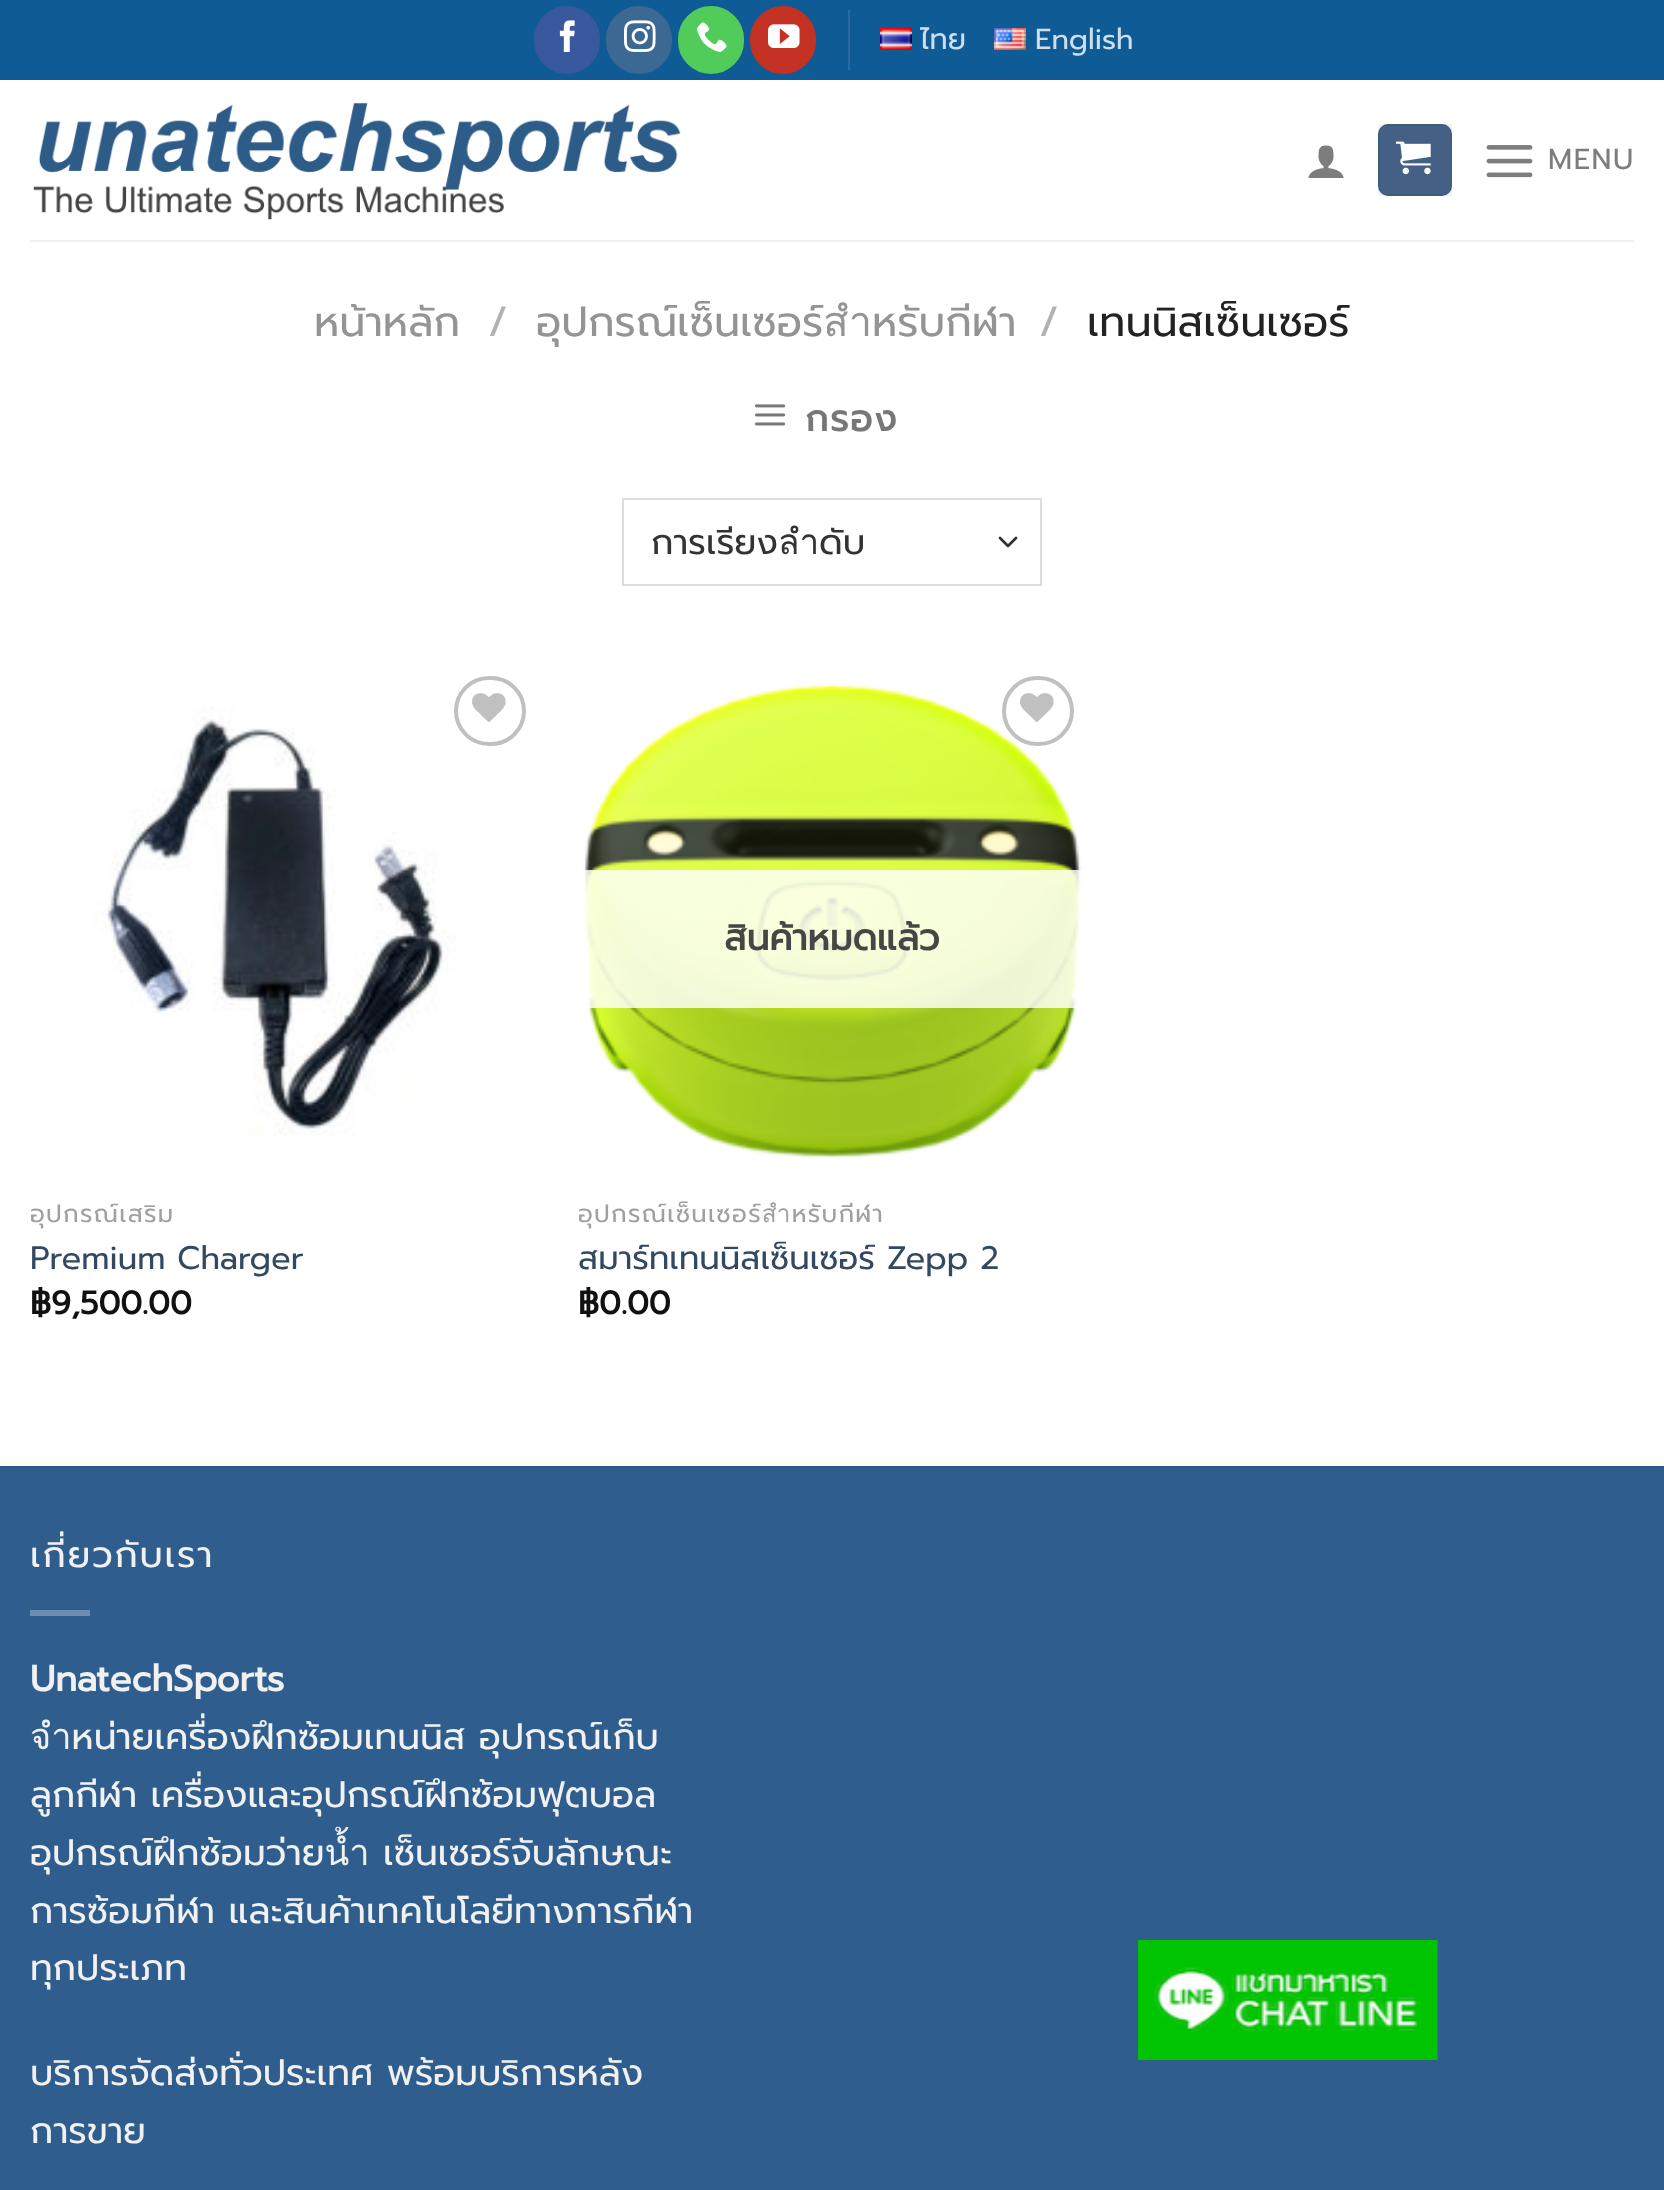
<svg xmlns="http://www.w3.org/2000/svg" width="1664" height="2190">
	<defs>
		<clipPath id="clip1"><rect x="30" y="1200" width="508" height="30" /></clipPath>
		<clipPath id="clip2"><rect x="578" y="1200" width="508" height="30" /></clipPath>
	</defs>
	<rect width="100%" height="100%" fill="#FFFFFF" />
	<rect x="0" y="0" width="1664" height="80" fill="#0F5B95" />
	<rect x="535" y="7" width="64" height="66" rx="32" fill="#3A589D" stroke="#3A589D" stroke-width="2" />
	<image x="559" y="20" width="16" height="32" href="assets/img1.png" />
	<rect x="607" y="7" width="64" height="66" rx="32" fill="#3B6994" stroke="#3B6994" stroke-width="2" />
	<image x="624" y="20" width="32" height="32" href="assets/img2.png" />
	<rect x="679" y="7" width="64" height="66" rx="32" fill="#51CB5A" stroke="#51CB5A" stroke-width="2" />
	<image x="697" y="22" width="30" height="30" href="assets/img3.png" />
	<rect x="751" y="7" width="64" height="66" rx="32" fill="#C33223" stroke="#C33223" stroke-width="2" />
	<image x="768" y="24" width="32" height="24" href="assets/img4.png" />
	<rect x="848" y="10" width="2" height="60" fill="#276BA0" />
	<image x="880" y="28" width="32" height="22" href="assets/img5.png" />
	<text x="920" y="49" font-family="Prompt" font-size="29" fill="#CFDEEA">ไทย</text>
	<image x="994" y="28" width="32" height="22" href="assets/img6.png" />
	<text x="1035" y="49" font-family="Prompt" font-size="29" fill="#CFDEEA">English</text>
	<image x="33" y="102" width="648" height="118" href="assets/img7.png" />
	<image x="1308" y="145" width="36" height="33" href="assets/img8.png" />
	<rect x="1378" y="124" width="74" height="72" rx="10" fill="#446084" />
	<rect x="1379" y="125" width="72" height="70" fill="none" stroke="#000000" stroke-opacity="0.05" stroke-width="2" />
	<image x="1396" y="141" width="35" height="34" href="assets/img9.png" />
	<image x="1486" y="145" width="47" height="33" href="assets/img10.png" />
	<text x="1548" y="169" font-family="Prompt" font-size="29" letter-spacing="1.5" fill="#7D7D7D">MENU</text>
	<rect x="30" y="240" width="1604" height="2" fill="#F1F1F1" />
	<text x="314" y="336" font-family="Prompt" font-size="41.5" fill="#949494">หน้าหลัก</text>
	<text x="488" y="336" font-family="Prompt" font-size="41.5" fill="#B2B2B2">/</text>
	<text x="536" y="336" font-family="Prompt" font-size="41.5" fill="#949494">อุปกรณ์เซ็นเซอร์สำหรับกีฬา</text>
	<text x="1039" y="336" font-family="Prompt" font-size="41.5" fill="#B2B2B2">/</text>
	<text x="1087" y="336" font-family="Prompt" font-size="41.5" fill="#222222">เทนนิสเซ็นเซอร์</text>
	<image x="755" y="404" width="31" height="22" href="assets/img11.png" />
	<text x="805" y="431" font-family="Prompt" font-size="36.2" font-weight="700" letter-spacing="1.75" fill="#777777">กรอง</text>
	<path d="M1000 538L1008 546L1016 538" fill="none" stroke="#333333" stroke-width="2.7" stroke-linecap="round" stroke-linejoin="round" />
	<rect x="623" y="499" width="418" height="86" fill="none" stroke="#DDDDDD" stroke-width="2" />
	<text x="651" y="554" font-family="Prompt" font-size="35" fill="#333333">การเรียงลำดับ</text>
	<image x="92" y="707" width="365" height="429" href="assets/img12.png" />
	<rect x="456" y="678" width="68" height="66" rx="33" fill="none" stroke="#C0C0C0" stroke-width="4" />
	<image x="472" y="693" width="34" height="29" href="assets/img13.png" />
	<g clip-path="url(#clip1)">
		<text x="30" y="1222" font-family="Prompt" font-size="24.4" letter-spacing="1.25" fill="#A0A0A0">อุปกรณ์เสริม</text>
	</g>
	<text x="30" y="1269" font-family="Prompt" font-size="32.5" fill="#334862">Premium Charger</text>
	<text x="30" y="1314" font-family="Prompt" font-size="32.5" font-weight="700" fill="#111111">฿9,500.00</text>
	<image x="582" y="683" width="500" height="476" href="assets/img14.png" />
	<rect x="1004" y="678" width="68" height="66" rx="33" fill="none" stroke="#C0C0C0" stroke-width="4" />
	<image x="1020" y="693" width="34" height="29" href="assets/img13.png" />
	<rect x="582" y="870" width="500" height="138" fill="#FFFFFF" fill-opacity="0.81" />
	<text x="724" y="950" font-family="Prompt" font-size="36.2" font-weight="700" fill="#464744">สินค้าหมดแล้ว</text>
	<g clip-path="url(#clip2)">
		<text x="578" y="1222" font-family="Prompt" font-size="24.4" letter-spacing="1.25" fill="#A0A0A0">อุปกรณ์เซ็นเซอร์สำหรับกีฬา</text>
	</g>
	<text x="578" y="1269" font-family="Prompt" font-size="32.5" fill="#334862">สมาร์ทเทนนิสเซ็นเซอร์ Zepp 2</text>
	<text x="578" y="1314" font-family="Prompt" font-size="32.5" font-weight="700" fill="#111111">฿0.00</text>
	<rect x="0" y="1468" width="1664" height="722" fill="#2F5E8E" />
	<rect x="0" y="1466" width="1664" height="2" fill="#2D5987" />
	<text x="30" y="1567" font-family="Prompt" font-size="36.2" letter-spacing="1.75" fill="#F1F1F1">เกี่ยวกับเรา</text>
	<rect x="30" y="1610" width="60" height="6" fill="#6D8EB0" />
	<text x="30" y="1691" font-family="Prompt" font-size="36.2" font-weight="700" fill="#F1F1F1">UnatechSports</text>
	<g font-family="Prompt" font-size="36.2" fill="#F1F1F1">
		<text x="30" y="1749">จำหน่ายเครื่องฝึกซ้อมเทนนิส อุปกรณ์เก็บ</text>
		<text x="30" y="1807">ลูกกีฬา เครื่องและอุปกรณ์ฝึกซ้อมฟุตบอล</text>
		<text x="30" y="1865">อุปกรณ์ฝึกซ้อมว่ายน้ำ เซ็นเซอร์จับลักษณะ</text>
		<text x="30" y="1923">การซ้อมกีฬา และสินค้าเทคโนโลยีทางการกีฬา</text>
		<text x="30" y="1980">ทุกประเภท</text>
		<text x="30" y="2085">บริการจัดส่งทั่วประเทศ พร้อมบริการหลัง</text>
		<text x="30" y="2143">การขาย</text>
	</g>
	<image x="1138" y="1940" width="300" height="120" href="assets/img15.png" />
</svg>
